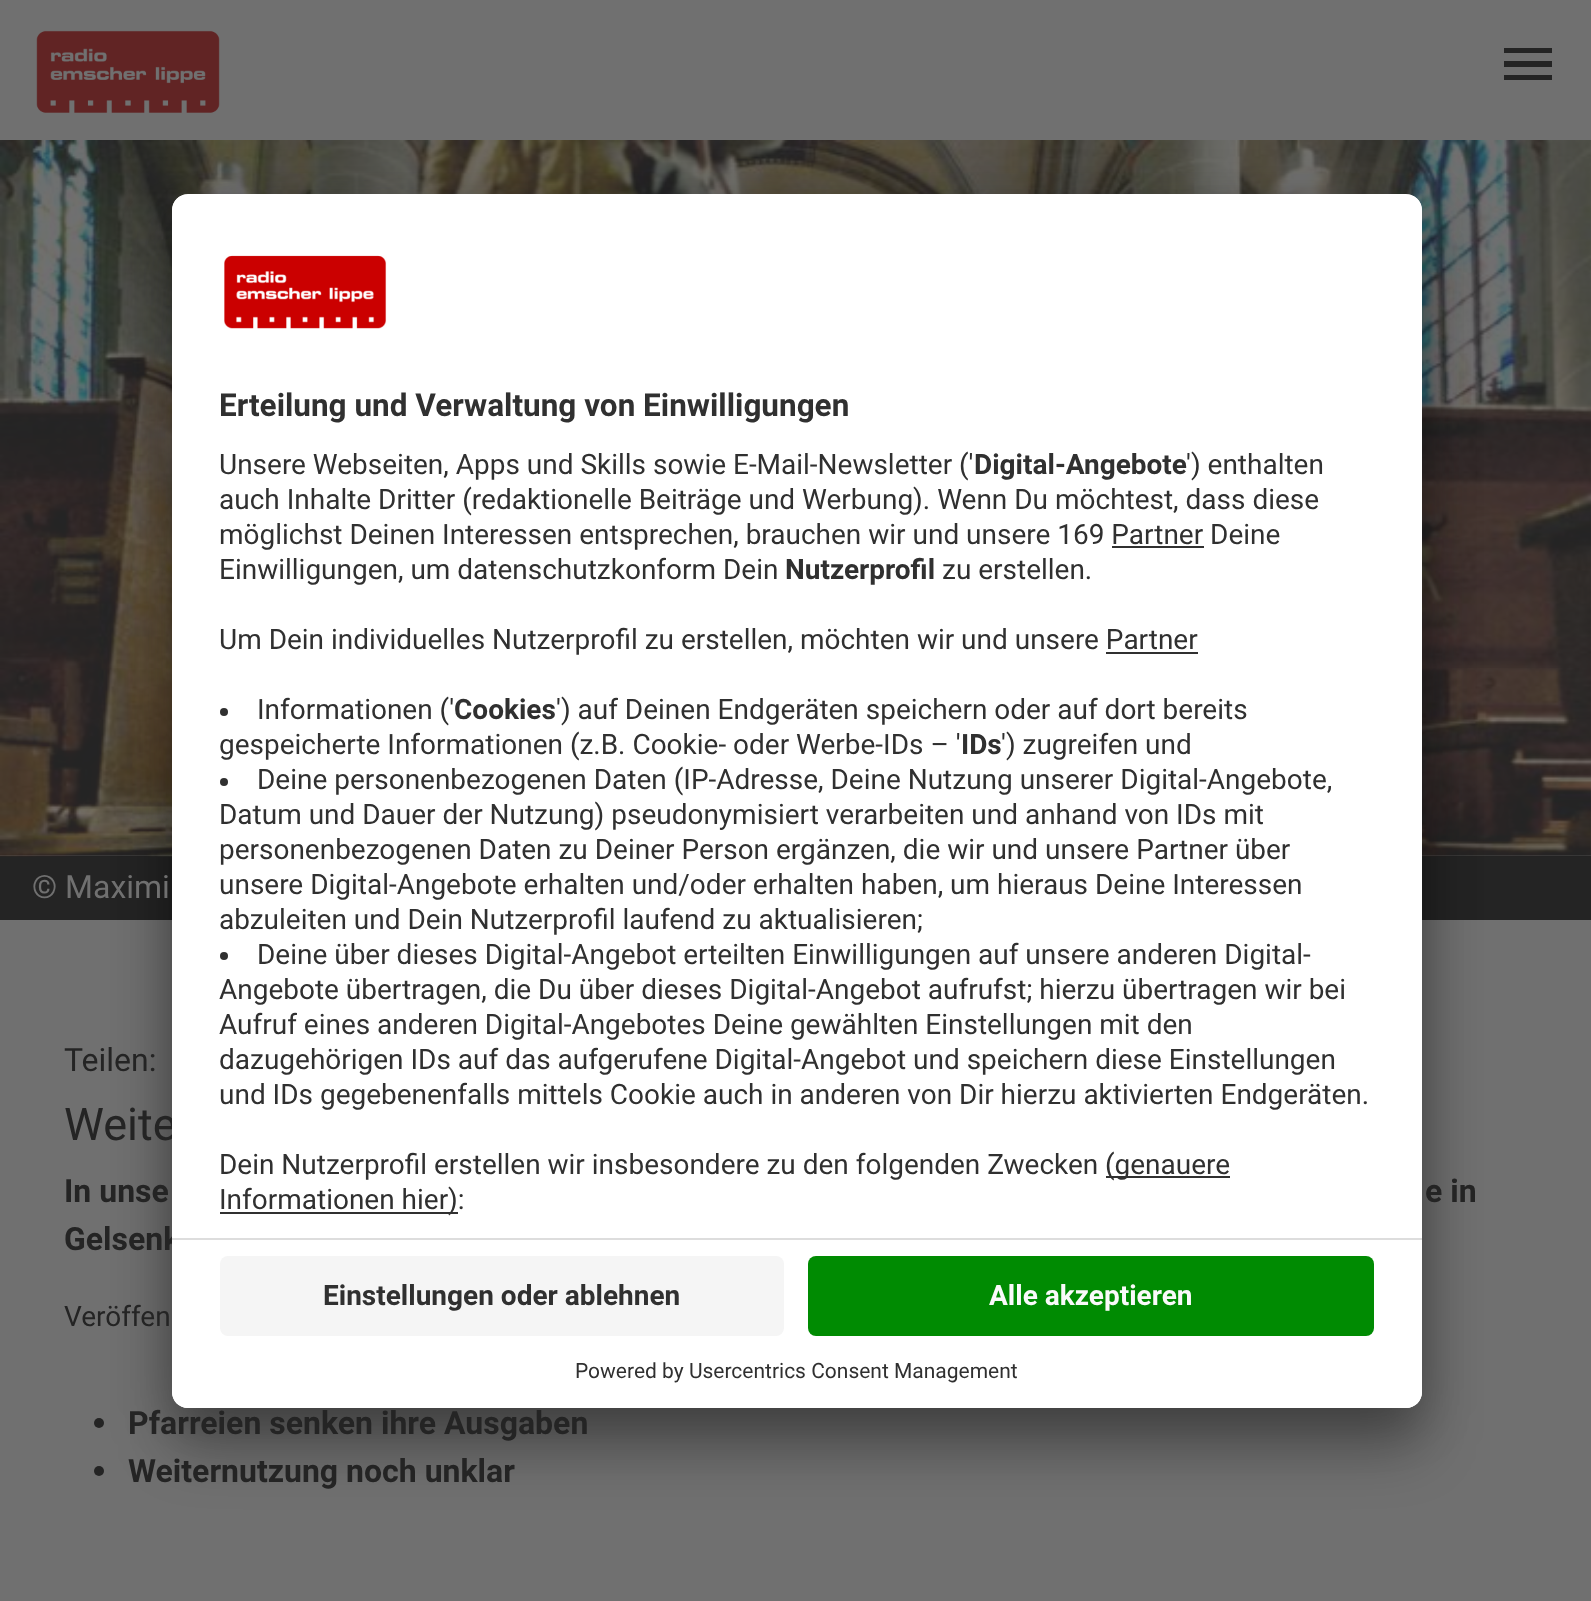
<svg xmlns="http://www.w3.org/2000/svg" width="1591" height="1601">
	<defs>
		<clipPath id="clip1"><rect x="172" y="194" width="1250" height="1214" rx="16" /></clipPath>
		<clipPath id="clip2"><path d="M188 194H1406C1415 194 1422 201 1422 210V1238H172V210C172 201 179 194 188 194Z" /></clipPath>
	</defs>
	<rect width="100%" height="100%" fill="#707070" />
	<rect x="0" y="856" width="1591" height="64" fill="#242424" />
	<image x="0" y="140" width="1591" height="717" href="assets/img3.png" />
	<circle cx="99" cy="1423" r="5" fill="#242424" />
	<circle cx="99" cy="1471" r="5" fill="#242424" />
	<rect x="172" y="234" width="1250" height="1214" rx="16" fill="#000000" fill-opacity="0.3" filter="blur(28px)" />
	<rect x="172" y="204" width="1250" height="1214" rx="16" fill="#000000" fill-opacity="0.22" filter="blur(26px)" />
	<text x="64" y="1140" font-family="Roboto" font-size="45" fill="#242424">Weite</text>
	<text x="64" y="1250" font-family="Roboto" font-size="32" font-weight="700" fill="#242424">Gelsenk</text>
	<rect x="172" y="194" width="1250" height="1214" rx="16" fill="#FFFFFF" />
	<g clip-path="url(#clip1)">
		<g clip-path="url(#clip2)">
			<rect x="172" y="196" width="1250" height="1042" fill="#FFFFFF" />
		</g>
	</g>
	<image x="224" y="255" width="163" height="74" href="assets/img1.png" />
	<text x="219" y="416" font-family="Roboto" font-size="31.5" font-weight="700" fill="#303030">Erteilung und Verwaltung von Einwilligungen</text>
	<text x="219" y="474" font-family="Roboto" font-size="28" fill="#303030">Unsere Webseiten, Apps und Skills sowie E-Mail-Newsletter ('</text>
	<text x="974" y="474" font-family="Roboto" font-size="28" font-weight="700" fill="#303030">Digital-Angebote</text>
	<g font-family="Roboto" font-size="28" fill="#303030">
		<text x="1186" y="474">') enthalten</text>
		<text x="219" y="509">auch Inhalte Dritter (redaktionelle Beiträge und Werbung). Wenn Du möchtest, dass diese</text>
		<text x="219" y="544">möglichst Deinen Interessen entsprechen, brauchen wir und unsere 169 Partner Deine</text>
	</g>
	<rect x="1112" y="546" width="92" height="2" fill="#303030" />
	<text x="219" y="579" font-family="Roboto" font-size="28" fill="#303030">Einwilligungen, um datenschutzkonform Dein</text>
	<text x="785" y="579" font-family="Roboto" font-size="28" font-weight="700" fill="#303030">Nutzerprofil</text>
	<g font-family="Roboto" font-size="28" fill="#303030">
		<text x="942" y="579">zu erstellen.</text>
		<text x="219" y="649">Um Dein individuelles Nutzerprofil zu erstellen, möchten wir und unsere Partner</text>
	</g>
	<rect x="1106" y="652" width="92" height="2" fill="#303030" />
	<circle cx="224" cy="712" r="4" fill="#303030" />
	<text x="257" y="719" font-family="Roboto" font-size="28" fill="#303030">Informationen ('</text>
	<text x="454" y="719" font-family="Roboto" font-size="28" font-weight="700" fill="#303030">Cookies</text>
	<g font-family="Roboto" font-size="28" fill="#303030">
		<text x="556" y="719">') auf Deinen Endgeräten speichern oder auf dort bereits</text>
		<text x="219" y="754">gespeicherte Informationen (z.B. Cookie- oder Werbe-IDs – '</text>
	</g>
	<text x="961" y="754" font-family="Roboto" font-size="28" font-weight="700" fill="#303030">IDs</text>
	<text x="1001" y="754" font-family="Roboto" font-size="28" fill="#303030">') zugreifen und</text>
	<circle cx="224" cy="782" r="4" fill="#303030" />
	<g font-family="Roboto" font-size="28" fill="#303030">
		<text x="257" y="789">Deine personenbezogenen Daten (IP-Adresse, Deine Nutzung unserer Digital-Angebote,</text>
		<text x="219" y="824">Datum und Dauer der Nutzung) pseudonymisiert verarbeiten und anhand von IDs mit</text>
		<text x="219" y="859">personenbezogenen Daten zu Deiner Person ergänzen, die wir und unsere Partner über</text>
		<text x="219" y="894">unsere Digital-Angebote erhalten und/oder erhalten haben, um hieraus Deine Interessen</text>
		<text x="219" y="929">abzuleiten und Dein Nutzerprofil laufend zu aktualisieren;</text>
	</g>
	<circle cx="224" cy="956" r="4" fill="#303030" />
	<g font-family="Roboto" font-size="28" fill="#303030">
		<text x="257" y="964">Deine über dieses Digital-Angebot erteilten Einwilligungen auf unsere anderen Digital-</text>
		<text x="219" y="999">Angebote übertragen, die Du über dieses Digital-Angebot aufrufst; hierzu übertragen wir bei</text>
		<text x="219" y="1034">Aufruf eines anderen Digital-Angebotes Deine gewählten Einstellungen mit den</text>
		<text x="219" y="1069">dazugehörigen IDs auf das aufgerufene Digital-Angebot und speichern diese Einstellungen</text>
		<text x="219" y="1104">und IDs gegebenenfalls mittels Cookie auch in anderen von Dir hierzu aktivierten Endgeräten.</text>
		<text x="219" y="1174">Dein Nutzerprofil erstellen wir insbesondere zu den folgenden Zwecken</text>
	</g>
	<rect x="1106" y="1176" width="124" height="2" fill="#303030" />
	<text x="1105" y="1174" font-family="Roboto" font-size="28" fill="#303030">(genauere</text>
	<rect x="220" y="1212" width="238" height="2" fill="#303030" />
	<text x="219" y="1209" font-family="Roboto" font-size="28" fill="#303030">Informationen hier):</text>
	<path d="M172 1238H1422V1392C1422 1401 1415 1408 1406 1408H188C179 1408 172 1401 172 1392Z" fill="#FFFFFF" />
	<rect x="172" y="1238" width="1250" height="2" fill="#DDDDDD" />
	<rect x="220" y="1256" width="564" height="80" rx="8" fill="#F5F5F5" />
	<text x="323" y="1305" font-family="Roboto" font-size="28" font-weight="700" fill="#303030">Einstellungen oder ablehnen</text>
	<rect x="808" y="1256" width="566" height="80" rx="8" fill="#008B02" />
	<text x="989" y="1305" font-family="Roboto" font-size="28" font-weight="700" fill="#FAFAFA">Alle akzeptieren</text>
	<text x="575" y="1378" font-family="Roboto" font-size="21" fill="#303030">Powered by Usercentrics Consent Management</text>
	<image x="36" y="30" width="184" height="83" href="assets/img2.png" />
	<path d="M1504 80V75H1552V80ZM1504 67V61H1552V67ZM1504 53V48H1552V53Z" fill="#242424" />
	<text x="32" y="898" font-family="Roboto" font-size="32" fill="#707070">© Maximi</text>
	<text x="64" y="1071" font-family="Roboto" font-size="32" fill="#242424">Teilen:</text>
	<g font-family="Roboto" font-size="32" font-weight="700" fill="#242424">
		<text x="64" y="1202">In unse</text>
		<text x="1425" y="1202">e in</text>
	</g>
	<text x="64" y="1326" font-family="Roboto" font-size="28" fill="#242424">Veröffen</text>
	<g font-family="Roboto" font-size="32" font-weight="700" fill="#242424">
		<text x="128" y="1434">Pfarreien senken ihre Ausgaben</text>
		<text x="128" y="1482">Weiternutzung noch unklar</text>
	</g>
</svg>
